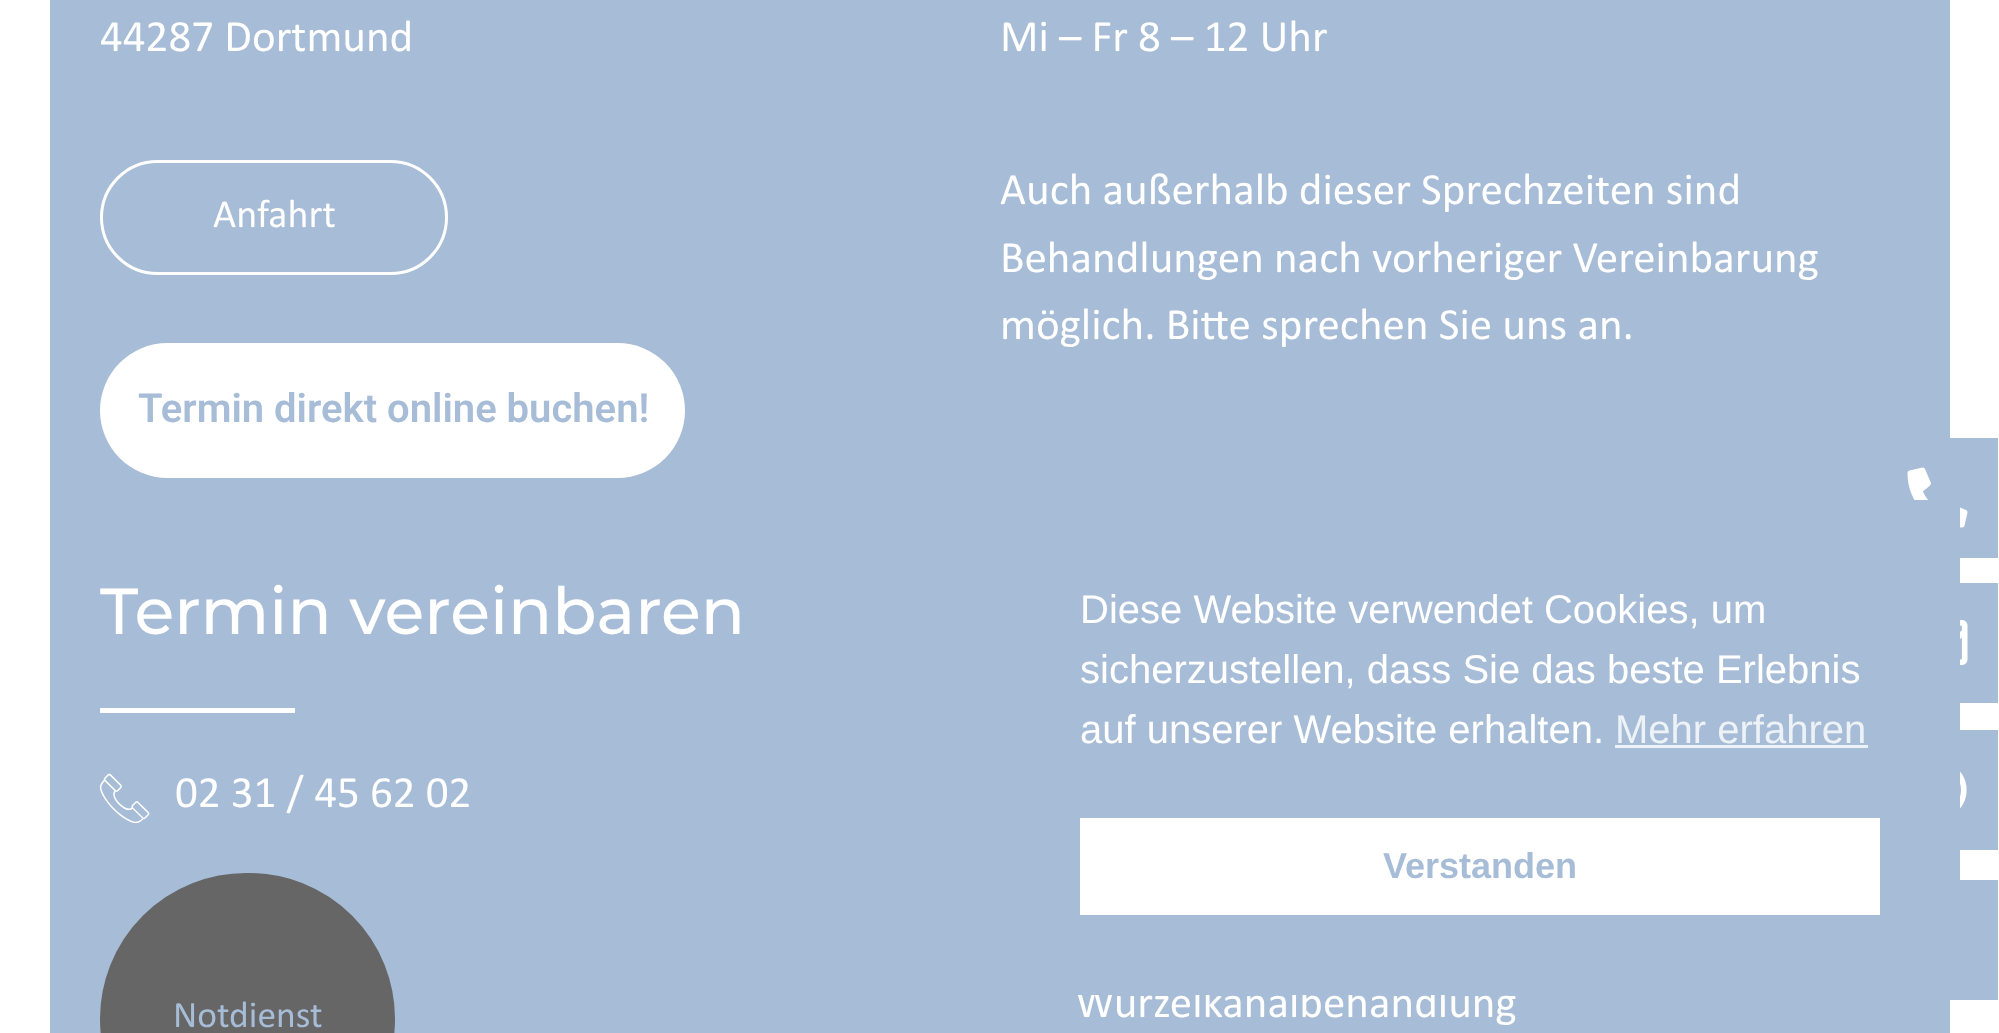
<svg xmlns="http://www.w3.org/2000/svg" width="1999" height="1033">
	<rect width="100%" height="100%" fill="#FFFFFF" />
	<rect x="50" y="0" width="1900" height="1033" fill="#A7BCD6" />
	<text x="100" y="51" font-family="Calibri" font-size="45" fill="#FFFFFF">44287 Dortmund</text>
	<rect x="101.5" y="161.5" width="345" height="112" rx="56" fill="none" stroke="#FFFFFF" stroke-width="3" />
	<text x="213" y="227" font-family="Calibri" font-size="40" fill="#FFFFFF">Anfahrt</text>
	<rect x="100" y="343" width="585" height="135" rx="67.5" fill="#FFFFFF" />
	<text x="138" y="422" font-family="Roboto" font-size="40" font-weight="600" fill="#A7BCD6">Termin direkt online buchen!</text>
	<g font-family="Calibri" font-size="45" fill="#FFFFFF">
		<text x="1000" y="51">Mi – Fr 8 – 12 Uhr</text>
		<text x="1000" y="204">Auch außerhalb dieser Sprechzeiten sind</text>
		<text x="1000" y="272">Behandlungen nach vorheriger Vereinbarung</text>
		<text x="1000" y="339">möglich. Bitte sprechen Sie uns an.</text>
	</g>
	<text x="100" y="634" font-family="Montserrat" font-size="65" font-weight="100" fill="#FFFFFF">Termin vereinbaren</text>
	<rect x="100" y="708" width="195" height="5" fill="#FFFFFF" />
	<image x="99" y="773" width="51" height="51" href="assets/img1.png" />
	<text x="175" y="807" font-family="Calibri" font-size="45" fill="#FFFFFF">02 31 / 45 62 02</text>
	<rect x="101.5" y="874.5" width="292" height="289" rx="144.5" fill="#666666" stroke="#666666" stroke-width="3" />
	<text x="173" y="1027" font-family="Calibri" font-size="37.5" fill="#A7BCD6">Notdienst</text>
	<text x="1075" y="1017" font-family="Calibri" font-size="45" fill="#FFFFFF">Wurzelkanalbehandlung</text>
	<rect x="1950" y="438" width="48" height="120" fill="#A7BCD6" />
	<image x="1907" y="467" width="61" height="61" href="assets/img2.png" />
	<rect x="1960" y="583" width="38" height="120" fill="#A7BCD6" />
	<image x="1960" y="620" width="8" height="45" href="assets/img3.png" />
	<rect x="1960" y="730" width="38" height="120" fill="#A7BCD6" />
	<image x="1960" y="771" width="7" height="38" href="assets/img4.png" />
	<rect x="1950" y="880" width="48" height="120" fill="#A7BCD6" />
	<rect x="1076" y="500" width="884" height="495" fill="#A7BCD6" />
	<g font-family="Liberation Sans" font-size="40" fill="#FFFFFF">
		<text x="1080" y="623">Diese Website verwendet Cookies, um</text>
		<text x="1080" y="683">sicherzustellen, dass Sie das beste Erlebnis</text>
		<text x="1080" y="743">auf unserer Website erhalten.</text>
	</g>
	<text x="1615" y="743" font-family="Liberation Sans" font-size="40" fill="#EDF2F7">Mehr erfahren</text>
	<rect x="1615" y="745" width="253" height="3" fill="#EDF2F7" />
	<rect x="1080" y="818" width="800" height="97" fill="#FFFFFF" />
	<text x="1383" y="878" font-family="Liberation Sans" font-size="36" font-weight="700" fill="#A7BCD6">Verstanden</text>
</svg>
